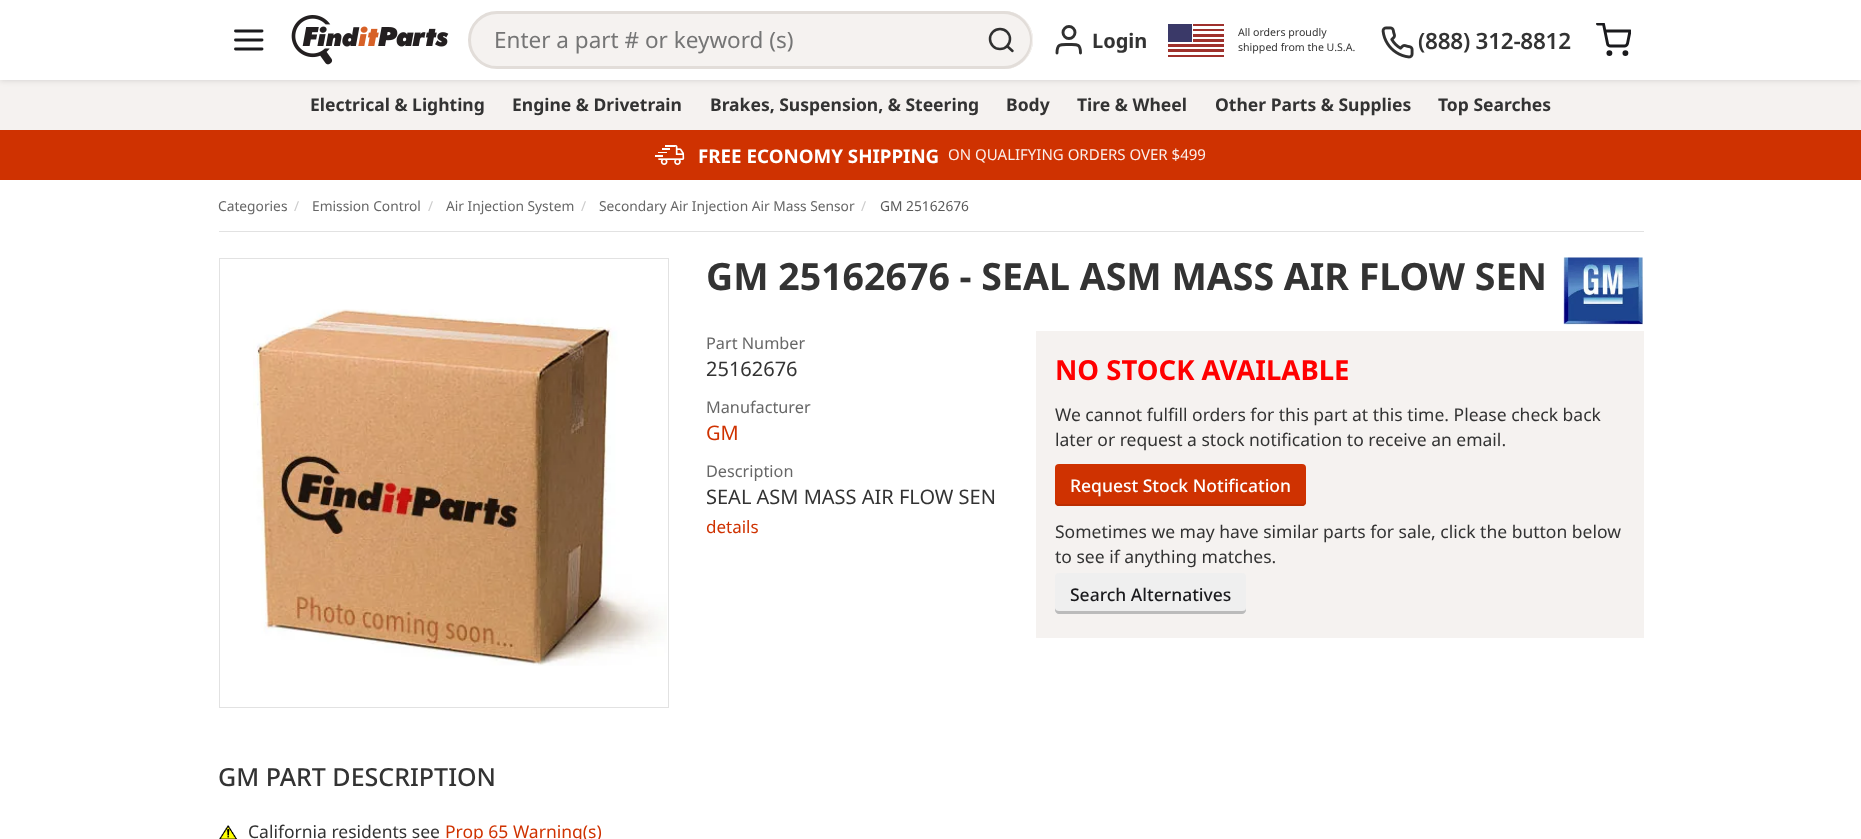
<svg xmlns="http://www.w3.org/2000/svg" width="1861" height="839">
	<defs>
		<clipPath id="clip1"><rect x="1596" y="23" width="35" height="35" /></clipPath>
	</defs>
	<rect width="100%" height="100%" fill="#FFFFFF" />
	<rect x="0" y="80" width="1861" height="50" fill="#F5F2F0" />
	<rect x="0" y="0" width="1861" height="80" fill="#000000" fill-opacity="0.25" filter="blur(0.5px)" />
	<rect x="0" y="0" width="1861" height="80" fill="#000000" fill-opacity="0.15" filter="blur(3px)" />
	<rect x="0" y="0" width="1861" height="80" fill="#FFFFFF" />
	<path d="M235.5 40H262M235.5 31H262M235.5 49H262" fill="none" stroke="#1A1A1D" stroke-width="2.9" stroke-linecap="round" stroke-linejoin="round" />
	<image x="291" y="15" width="158" height="50" href="assets/img1.png" />
	<rect x="469.5" y="12.5" width="562" height="55" rx="27.5" fill="#F5F2F0" stroke="#E2DDD9" stroke-width="3" />
	<text x="494" y="48" font-family="Noto Sans" font-size="22.5" fill="#757575">Enter a part # or keyword (s)</text>
	<path d="M974 11H1004C1020 11 1033 24 1033 40C1033 56 1020 69 1004 69H974Z" fill="#F5F2F0" />
	<circle cx="1000" cy="39" r="10" fill="none" stroke="#303030" stroke-width="2.5" />
	<path d="M1012.5 51L1007 46" fill="none" stroke="#303030" stroke-width="2.5" stroke-linecap="round" stroke-linejoin="round" />
	<path d="M974 11H1004C1020 11 1032 24 1032 40C1032 56 1020 69 1004 69H974ZM974 14H1004C1018 14 1030 26 1030 40C1030 54 1018 66 1004 66H974Z" fill="#E2DDD9" fill-rule="evenodd" />
	<path d="M1080.5 53C1080.5 43.5 1077 44.5 1069 44.5C1060.5 44.5 1057 43.5 1057 53" fill="none" stroke="#303030" stroke-width="2.9" stroke-linecap="round" stroke-linejoin="round" />
	<circle cx="1069" cy="32.5" r="6" fill="none" stroke="#303030" stroke-width="2.9" />
	<text x="1092" y="48" font-family="Noto Sans" font-size="20" font-weight="700" fill="#333333">Login</text>
	<rect x="1193" y="24" width="31" height="2" fill="#9F312C" />
	<rect x="1193" y="29" width="31" height="2" fill="#9F312C" />
	<rect x="1193" y="34" width="31" height="3" fill="#9F312C" />
	<rect x="1193" y="39" width="31" height="3" fill="#9F312C" />
	<rect x="1168" y="44" width="56" height="3" fill="#9F312C" />
	<rect x="1168" y="49" width="56" height="3" fill="#9F312C" />
	<rect x="1168" y="55" width="56" height="2" fill="#9F312C" />
	<rect x="1168" y="24" width="24" height="18" fill="#3A3968" />
	<g font-family="Noto Sans" font-size="10.6" fill="#333333">
		<text x="1238" y="36">All orders proudly</text>
		<text x="1238" y="51">shipped from the U.S.A.</text>
	</g>
	<image x="1381" y="26" width="33" height="33" href="assets/img2.png" />
	<text x="1418" y="49" font-family="Noto Sans" font-size="22.5" font-weight="600" letter-spacing="-0.25" fill="#333333">(888) 312-8812</text>
	<circle cx="1609.4" cy="53.1" r="1.5" fill="none" stroke="#1A1A1D" stroke-width="2.9" />
	<circle cx="1625.4" cy="53.1" r="1.5" fill="none" stroke="#1A1A1D" stroke-width="2.9" />
	<g clip-path="url(#clip1)">
		<path d="M1597.5 24H1603.5L1607.5 43.5C1607.5 45 1609 46 1610.5 46H1624.5C1626 46 1627 45 1627.5 43.5L1630 31H1605" fill="none" stroke="#1A1A1D" stroke-width="2.9" stroke-linecap="round" stroke-linejoin="round" />
	</g>
	<g font-family="Noto Sans" font-size="17.5" font-weight="700" fill="#333333">
		<text x="310" y="111">Electrical &amp; Lighting</text>
		<text x="512" y="111">Engine &amp; Drivetrain</text>
		<text x="710" y="111">Brakes, Suspension, &amp; Steering</text>
		<text x="1006" y="111">Body</text>
		<text x="1077" y="111">Tire &amp; Wheel</text>
		<text x="1215" y="111">Other Parts &amp; Supplies</text>
		<text x="1438" y="111">Top Searches</text>
	</g>
	<rect x="0" y="130" width="1861" height="50" fill="#CF3201" />
	<image x="655" y="145" width="30" height="20" href="assets/img3.png" />
	<text x="698" y="163" font-family="Noto Sans" font-size="18.75" font-weight="700" fill="#FFFFFF">FREE ECONOMY SHIPPING</text>
	<text x="948" y="160" font-family="Noto Sans" font-size="15" fill="#FBEFEB">ON QUALIFYING ORDERS OVER $499</text>
	<rect x="219" y="231" width="1425" height="1" fill="#E2E2E2" />
	<text x="218" y="211" font-family="Noto Sans" font-size="13.75" fill="#676767">Categories</text>
	<text x="294" y="211" font-family="Noto Sans" font-size="13.75" fill="#CCCCCC">/</text>
	<text x="312" y="211" font-family="Noto Sans" font-size="13.75" fill="#676767">Emission Control</text>
	<text x="428" y="211" font-family="Noto Sans" font-size="13.75" fill="#CCCCCC">/</text>
	<text x="446" y="211" font-family="Noto Sans" font-size="13.75" fill="#676767">Air Injection System</text>
	<text x="581" y="211" font-family="Noto Sans" font-size="13.75" fill="#CCCCCC">/</text>
	<text x="599" y="211" font-family="Noto Sans" font-size="13.75" fill="#676767">Secondary Air Injection Air Mass Sensor</text>
	<text x="861" y="211" font-family="Noto Sans" font-size="13.75" fill="#CCCCCC">/</text>
	<text x="880" y="211" font-family="Noto Sans" font-size="13.75" fill="#595959">GM 25162676</text>
	<rect x="219.5" y="258.5" width="449" height="449" fill="none" stroke="#E2E2E2" />
	<image x="253" y="309" width="414" height="357" href="assets/img4.png" />
	<text x="706" y="290" font-family="Noto Sans" font-size="37.5" font-weight="700" fill="#333333">GM 25162676 - SEAL ASM MASS AIR FLOW SEN</text>
	<image x="1563" y="257" width="80" height="68" href="assets/img5.png" />
	<text x="706" y="349" font-family="Noto Sans" font-size="16.25" fill="#676767">Part Number</text>
	<text x="706" y="376" font-family="Noto Sans" font-size="20" fill="#333333">25162676</text>
	<text x="706" y="413" font-family="Noto Sans" font-size="16.25" fill="#676767">Manufacturer</text>
	<text x="706" y="440" font-family="Noto Sans" font-size="20" fill="#CF3201">GM</text>
	<text x="706" y="477" font-family="Noto Sans" font-size="16.25" fill="#676767">Description</text>
	<text x="706" y="504" font-family="Noto Sans" font-size="20" fill="#333333">SEAL ASM MASS AIR FLOW SEN</text>
	<text x="706" y="533" font-family="Noto Sans" font-size="17" fill="#CF3201">details</text>
	<rect x="1036" y="331" width="608" height="307" fill="#F5F2F0" />
	<text x="1055" y="380" font-family="Noto Sans" font-size="27.5" font-weight="700" fill="#FF0000">NO STOCK AVAILABLE</text>
	<g font-family="Noto Sans" font-size="17.5" fill="#333333">
		<text x="1055" y="421">We cannot fulfill orders for this part at this time. Please check back</text>
		<text x="1055" y="446">later or request a stock notification to receive an email.</text>
	</g>
	<rect x="1055" y="464" width="251" height="42" rx="4" fill="#CF3201" />
	<path d="M1055 500V502C1055 504 1057 506 1059 506H1302C1304 506 1306 504 1306 502V500C1306 502 1305 504 1302 504H1059C1057 504 1055 502 1055 500Z" fill="#BB2E02" />
	<text x="1070" y="492" font-family="Noto Sans" font-size="17.5" font-weight="500" fill="#FFFFFF">Request Stock Notification</text>
	<g font-family="Noto Sans" font-size="17.5" fill="#333333">
		<text x="1055" y="538">Sometimes we may have similar parts for sale, click the button below</text>
		<text x="1055" y="563">to see if anything matches.</text>
	</g>
	<rect x="1055" y="573" width="191" height="41" rx="4" fill="#EFEFEF" />
	<text x="1070" y="601" font-family="Noto Sans" font-size="17.5" font-weight="500" fill="#1A1A1D">Search Alternatives</text>
	<path d="M1055 608V610C1055 612 1057 614 1059 614H1242C1244 614 1246 612 1246 610V608C1246 610 1245 611 1242 611H1059C1057 611 1055 610 1055 608Z" fill="#BBBBBB" />
	<text x="218" y="786" font-family="Noto Sans" font-size="25" font-weight="500" fill="#333333">GM PART DESCRIPTION</text>
	<image x="219" y="825" width="19" height="14" href="assets/img6.png" />
	<text x="248" y="838" font-family="Noto Sans" font-size="17.5" fill="#333333">California residents see</text>
	<text x="445" y="838" font-family="Noto Sans" font-size="17.5" fill="#CF3201">Prop 65 Warning(s)</text>
</svg>
